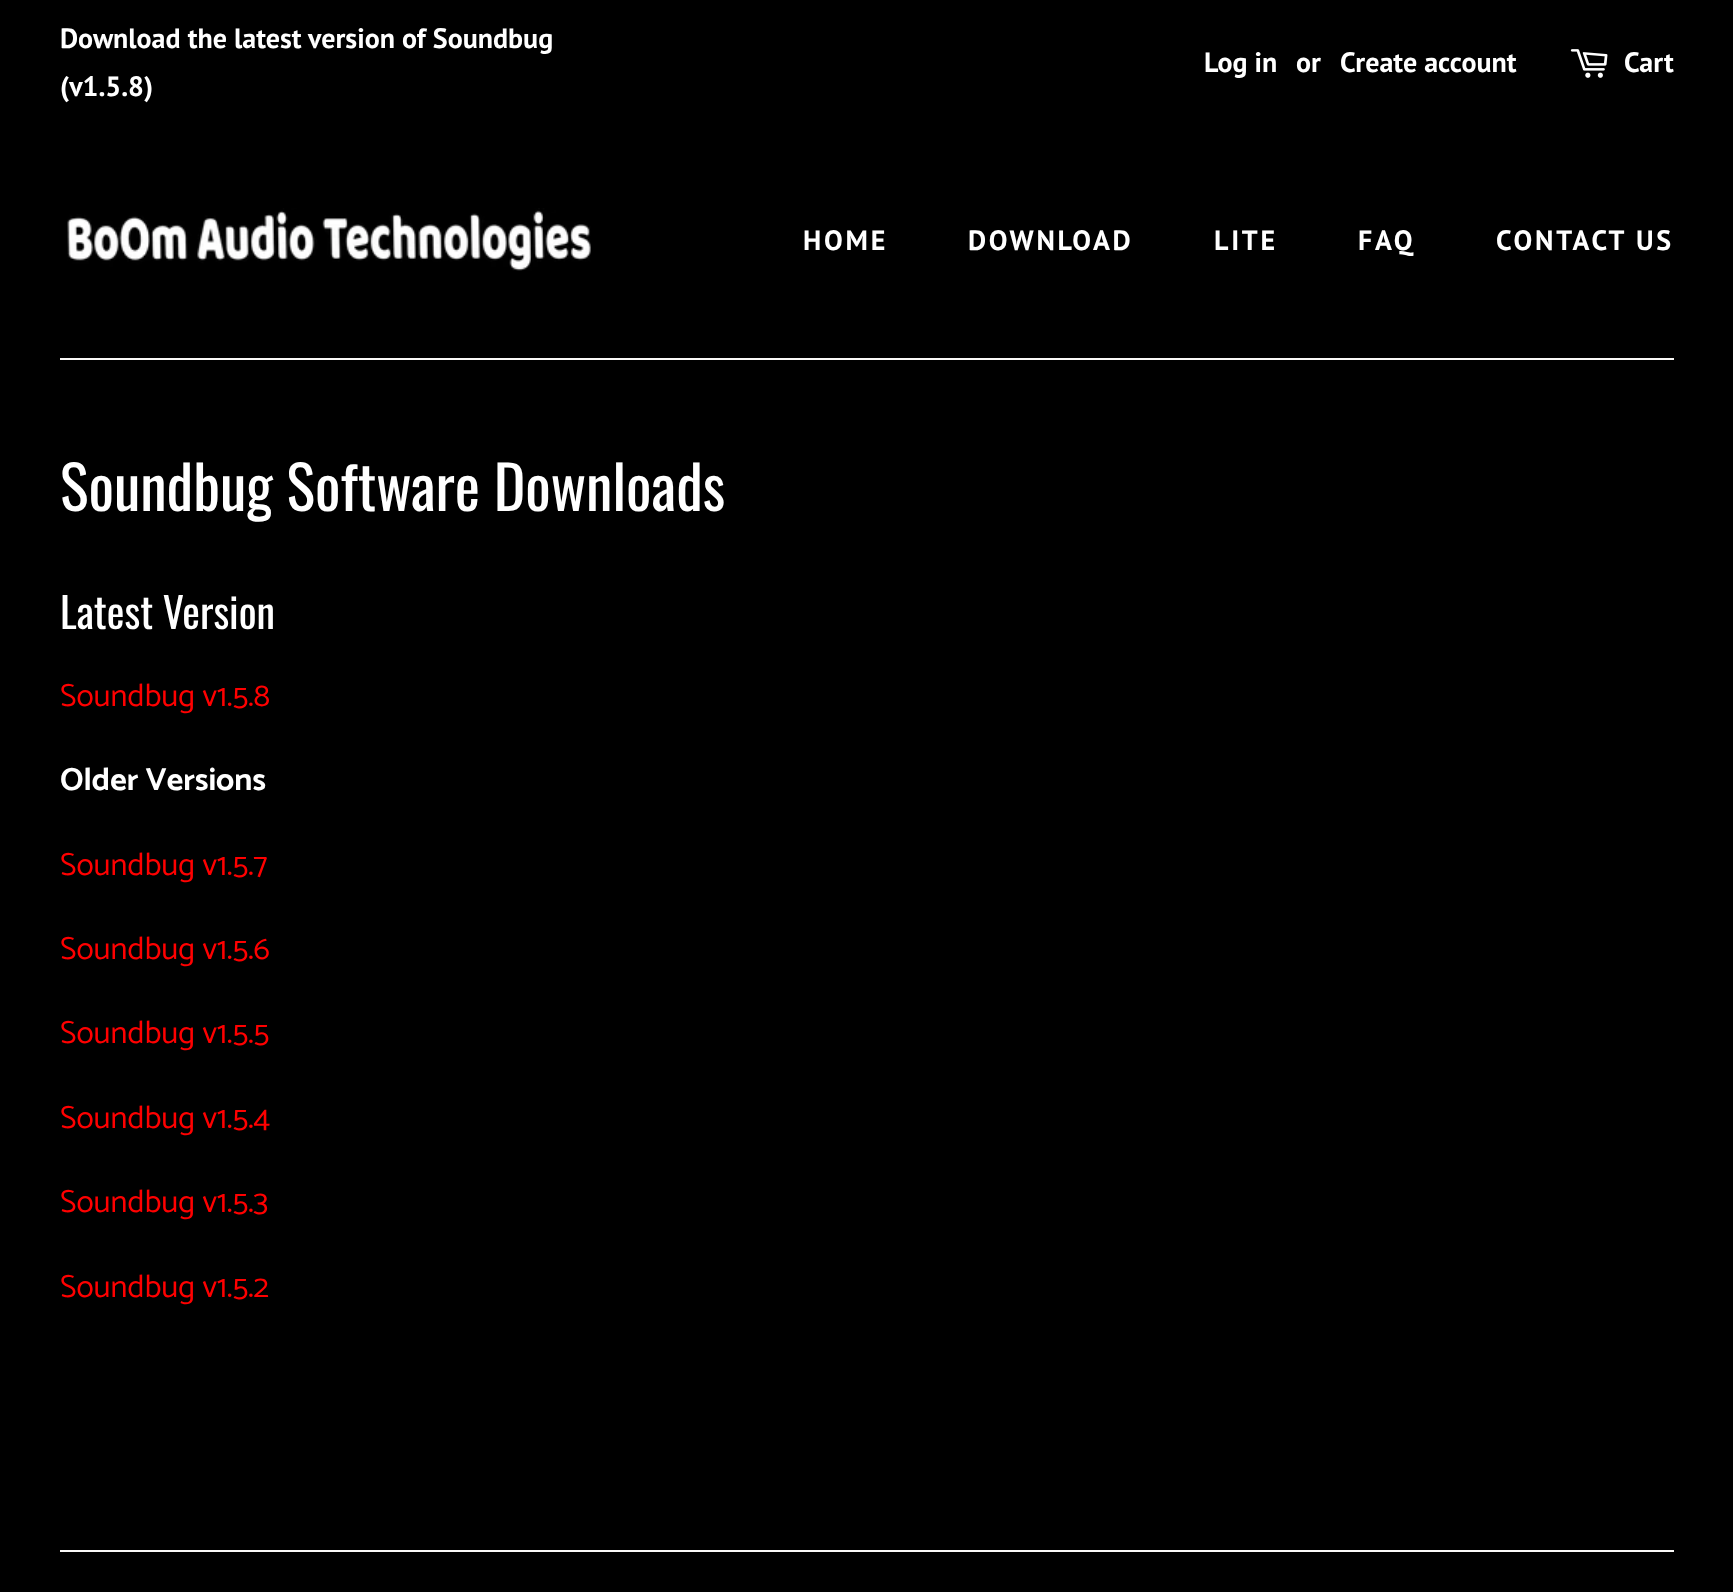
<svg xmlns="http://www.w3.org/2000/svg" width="1733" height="1592">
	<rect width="100%" height="100%" fill="#000000" />
	<g font-family="PT Sans" font-size="28" font-weight="700" fill="#FFFFFF">
		<text x="60" y="48">Download the latest version of Soundbug</text>
		<text x="60" y="96">(v1.5.8)</text>
		<text x="1204" y="72">Log in</text>
		<text x="1296" y="72">or</text>
		<text x="1340" y="72">Create account</text>
	</g>
	<image x="1570" y="49" width="38" height="29" href="assets/img1.png" />
	<text x="1624" y="72" font-family="PT Sans" font-size="28" font-weight="700" fill="#FFFFFF">Cart</text>
	<rect x="60" y="358" width="1614" height="2" fill="#FAF9F7" />
	<image x="67" y="208" width="524" height="63" href="assets/img2.png" />
	<g font-family="PT Sans" font-size="28" font-weight="700" letter-spacing="2.75" fill="#FFFFFF">
		<text x="803" y="250">HOME</text>
		<text x="968" y="250">DOWNLOAD</text>
		<text x="1214" y="250">LITE</text>
		<text x="1358" y="250">FAQ</text>
		<text x="1496" y="250">CONTACT US</text>
	</g>
	<text x="60" y="511" font-family="Oswald" font-size="60" fill="#FFFFFF">Soundbug Software Downloads</text>
	<text x="60" y="629" font-family="Oswald" font-size="42" fill="#FFFFFF">Latest Version</text>
	<text x="60" y="706" font-family="Catamaran" font-size="32" fill="#FF0000">Soundbug v1.5.8</text>
	<text x="60" y="790" font-family="Catamaran" font-size="32" font-weight="700" fill="#FFFFFF">Older Versions</text>
	<g font-family="Catamaran" font-size="32" fill="#FF0000">
		<text x="60" y="875">Soundbug v1.5.7</text>
		<text x="60" y="959">Soundbug v1.5.6</text>
		<text x="60" y="1043">Soundbug v1.5.5</text>
		<text x="60" y="1128">Soundbug v1.5.4</text>
		<text x="60" y="1212">Soundbug v1.5.3</text>
		<text x="60" y="1297">Soundbug v1.5.2</text>
	</g>
	<rect x="60" y="1550" width="1614" height="2" fill="#FAF9F7" />
</svg>
